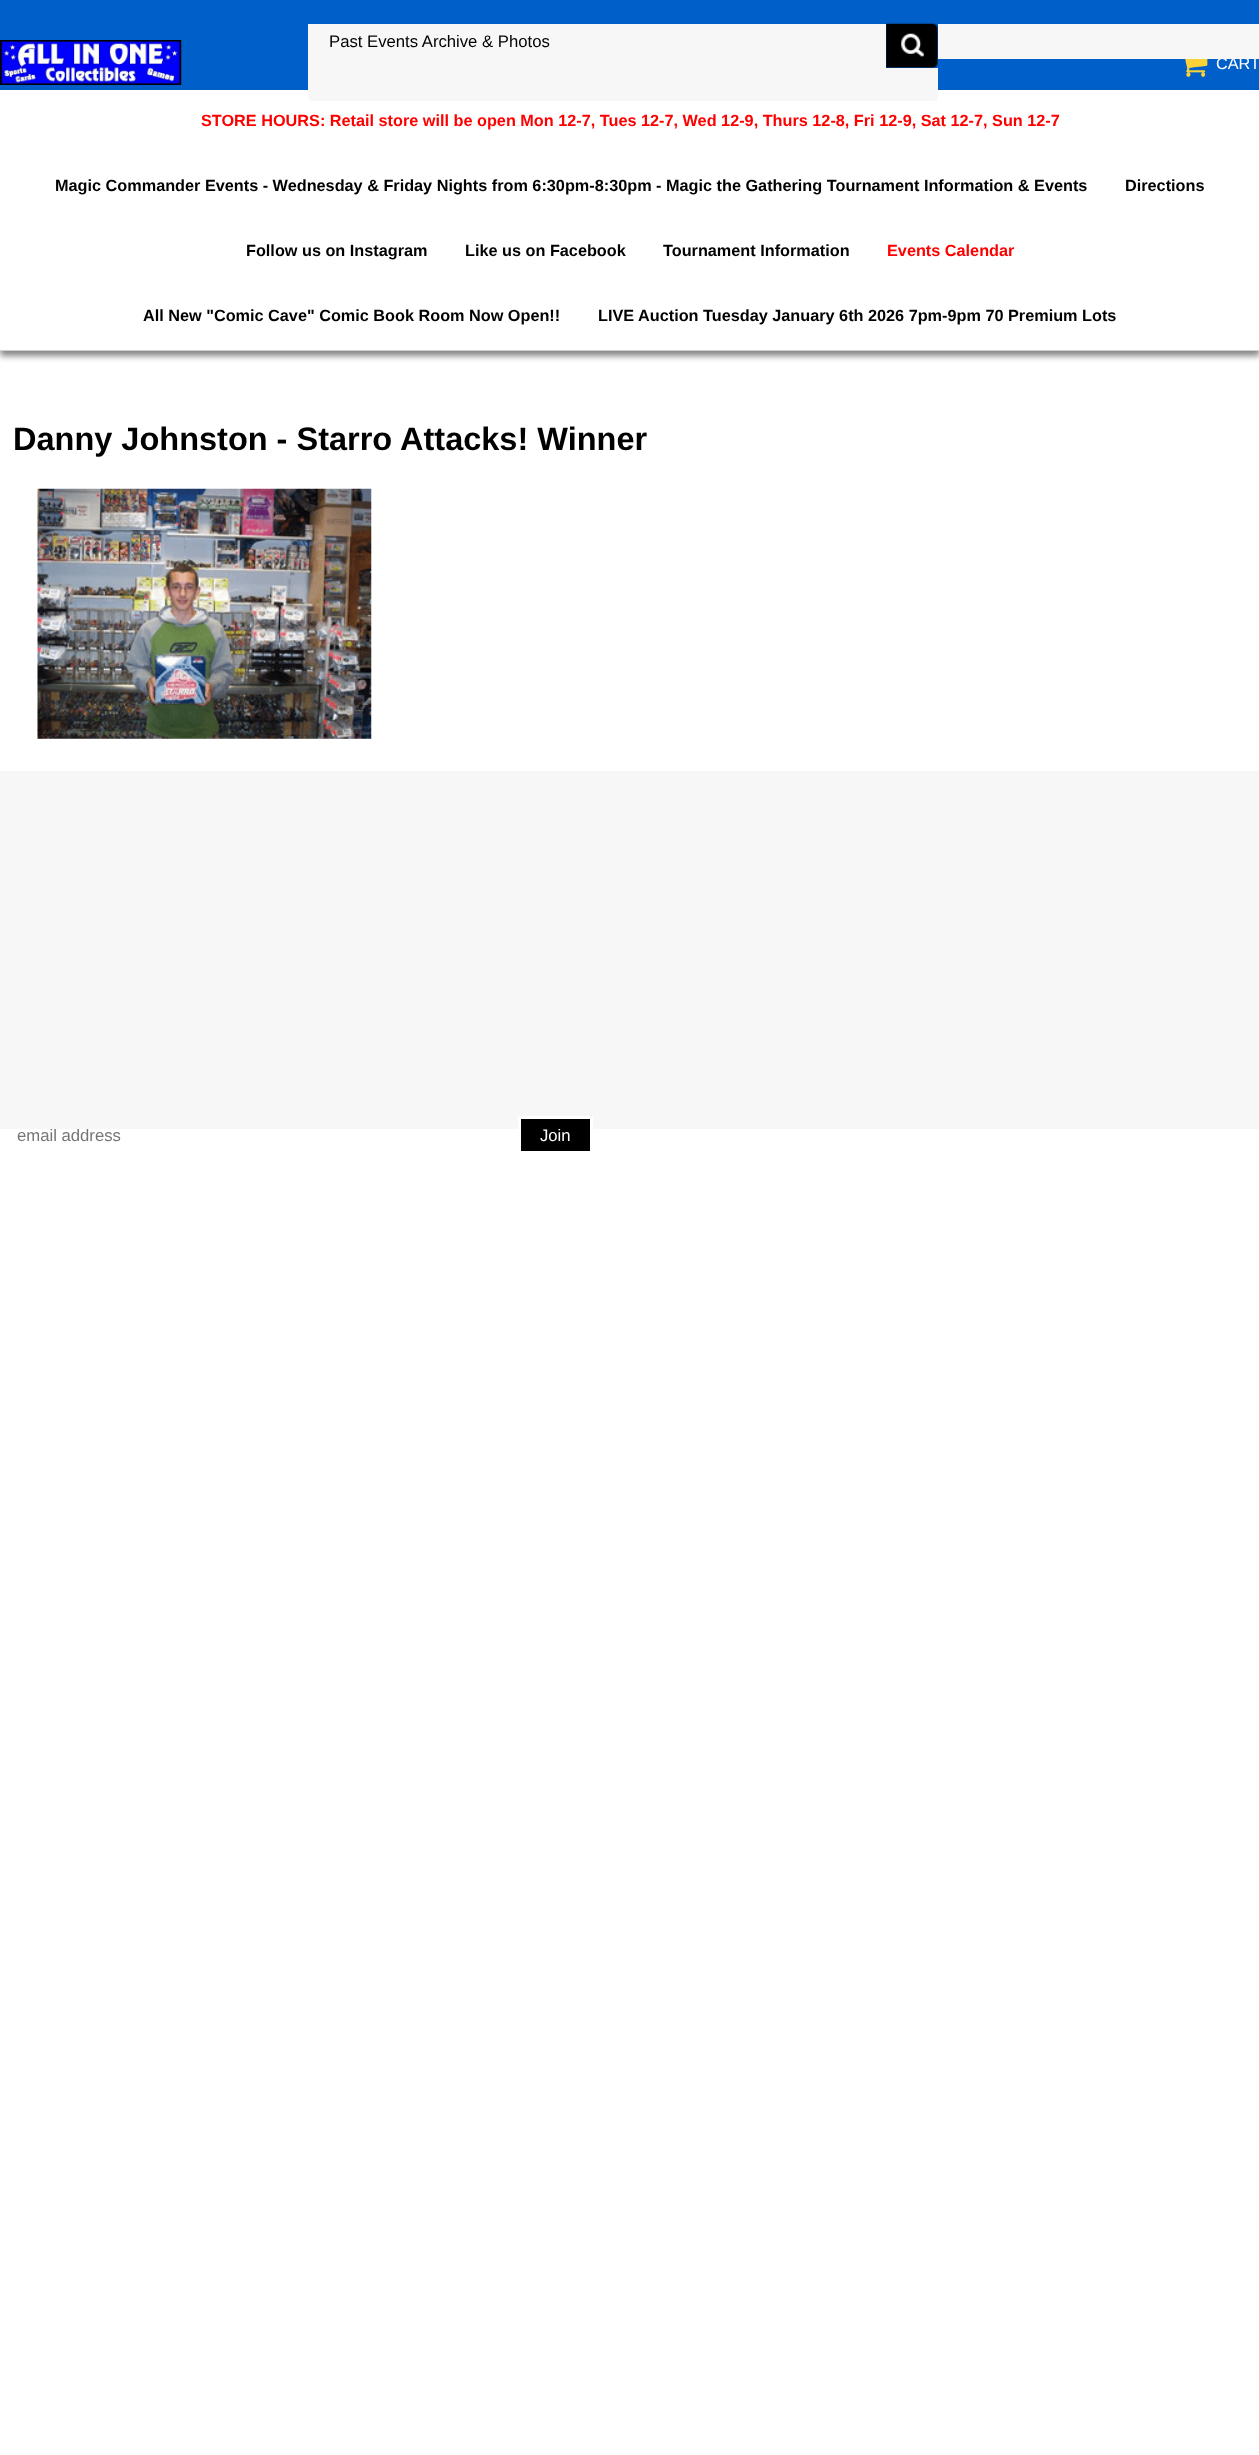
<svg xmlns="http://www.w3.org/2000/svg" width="1259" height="2455">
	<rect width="100%" height="100%" fill="#FFFFFF" />
	<rect x="0" y="0" width="1259" height="90" fill="#005FC9" />
	<image x="0" y="40" width="182" height="45" href="assets/img1.png" />
	<rect x="0" y="95" width="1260" height="261" fill="#000000" fill-opacity="0.48" filter="blur(3px)" />
	<rect x="0" y="90" width="1259" height="260" fill="#FFFFFF" />
	<rect x="308" y="24" width="630" height="77" rx="4" fill="#F7F7F7" />
	<text x="1216" y="69" font-family="Liberation Sans" font-size="16.25" fill="#FFFFFF">CART</text>
	<rect x="308" y="24" width="951" height="35" fill="#F7F7F7" />
	<text x="329" y="47" font-family="Liberation Sans" font-size="16.7" fill="#000000">Past Events Archive &amp; Photos</text>
	<rect x="886" y="24" width="52" height="44" fill="#005FC9" />
	<image x="886" y="23" width="52" height="45" href="assets/img2.png" />
	<image x="1180" y="59" width="28" height="18" href="assets/img3.png" />
	<rect x="0" y="350" width="1259" height="1" fill="#D0D0D0" />
	<text x="201" y="126" font-family="Liberation Sans" font-size="16.25" font-weight="700" fill="#FF0000">STORE HOURS: Retail store will be open Mon 12-7, Tues 12-7, Wed 12-9, Thurs 12-8, Fri 12-9, Sat 12-7, Sun 12-7</text>
	<g font-family="Liberation Sans" font-size="16.25" font-weight="700" fill="#000000">
		<text x="55" y="191">Magic Commander Events - Wednesday &amp; Friday Nights from 6:30pm-8:30pm - Magic the Gathering Tournament Information &amp; Events</text>
		<text x="1125" y="191">Directions</text>
		<text x="246" y="256">Follow us on Instagram</text>
		<text x="465" y="256">Like us on Facebook</text>
		<text x="663" y="256">Tournament Information</text>
	</g>
	<text x="887" y="256" font-family="Liberation Sans" font-size="16.25" font-weight="700" fill="#FF0000">Events Calendar</text>
	<g font-family="Liberation Sans" font-size="16.25" font-weight="700" fill="#000000">
		<text x="143" y="321">All New "Comic Cave" Comic Book Room Now Open!!</text>
		<text x="598" y="321">LIVE Auction Tuesday January 6th 2026 7pm-9pm 70 Premium Lots</text>
	</g>
	<text x="13" y="450" font-family="Liberation Sans" font-size="32.5" font-weight="700" fill="#000000">Danny Johnston - Starro Attacks! Winner</text>
	<image x="37" y="488" width="335" height="251" href="assets/img4.png" />
	<rect x="0" y="771" width="1259" height="358" fill="#F7F7F7" />
	<text x="17" y="1141" font-family="Liberation Sans" font-size="16.7" fill="#757575">email address</text>
	<rect x="519.5" y="1117.5" width="72" height="35" fill="#000000" stroke="#FFFFFF" stroke-width="3" />
	<text x="540" y="1141" font-family="Liberation Sans" font-size="16.7" fill="#FFFFFF">Join</text>
</svg>
